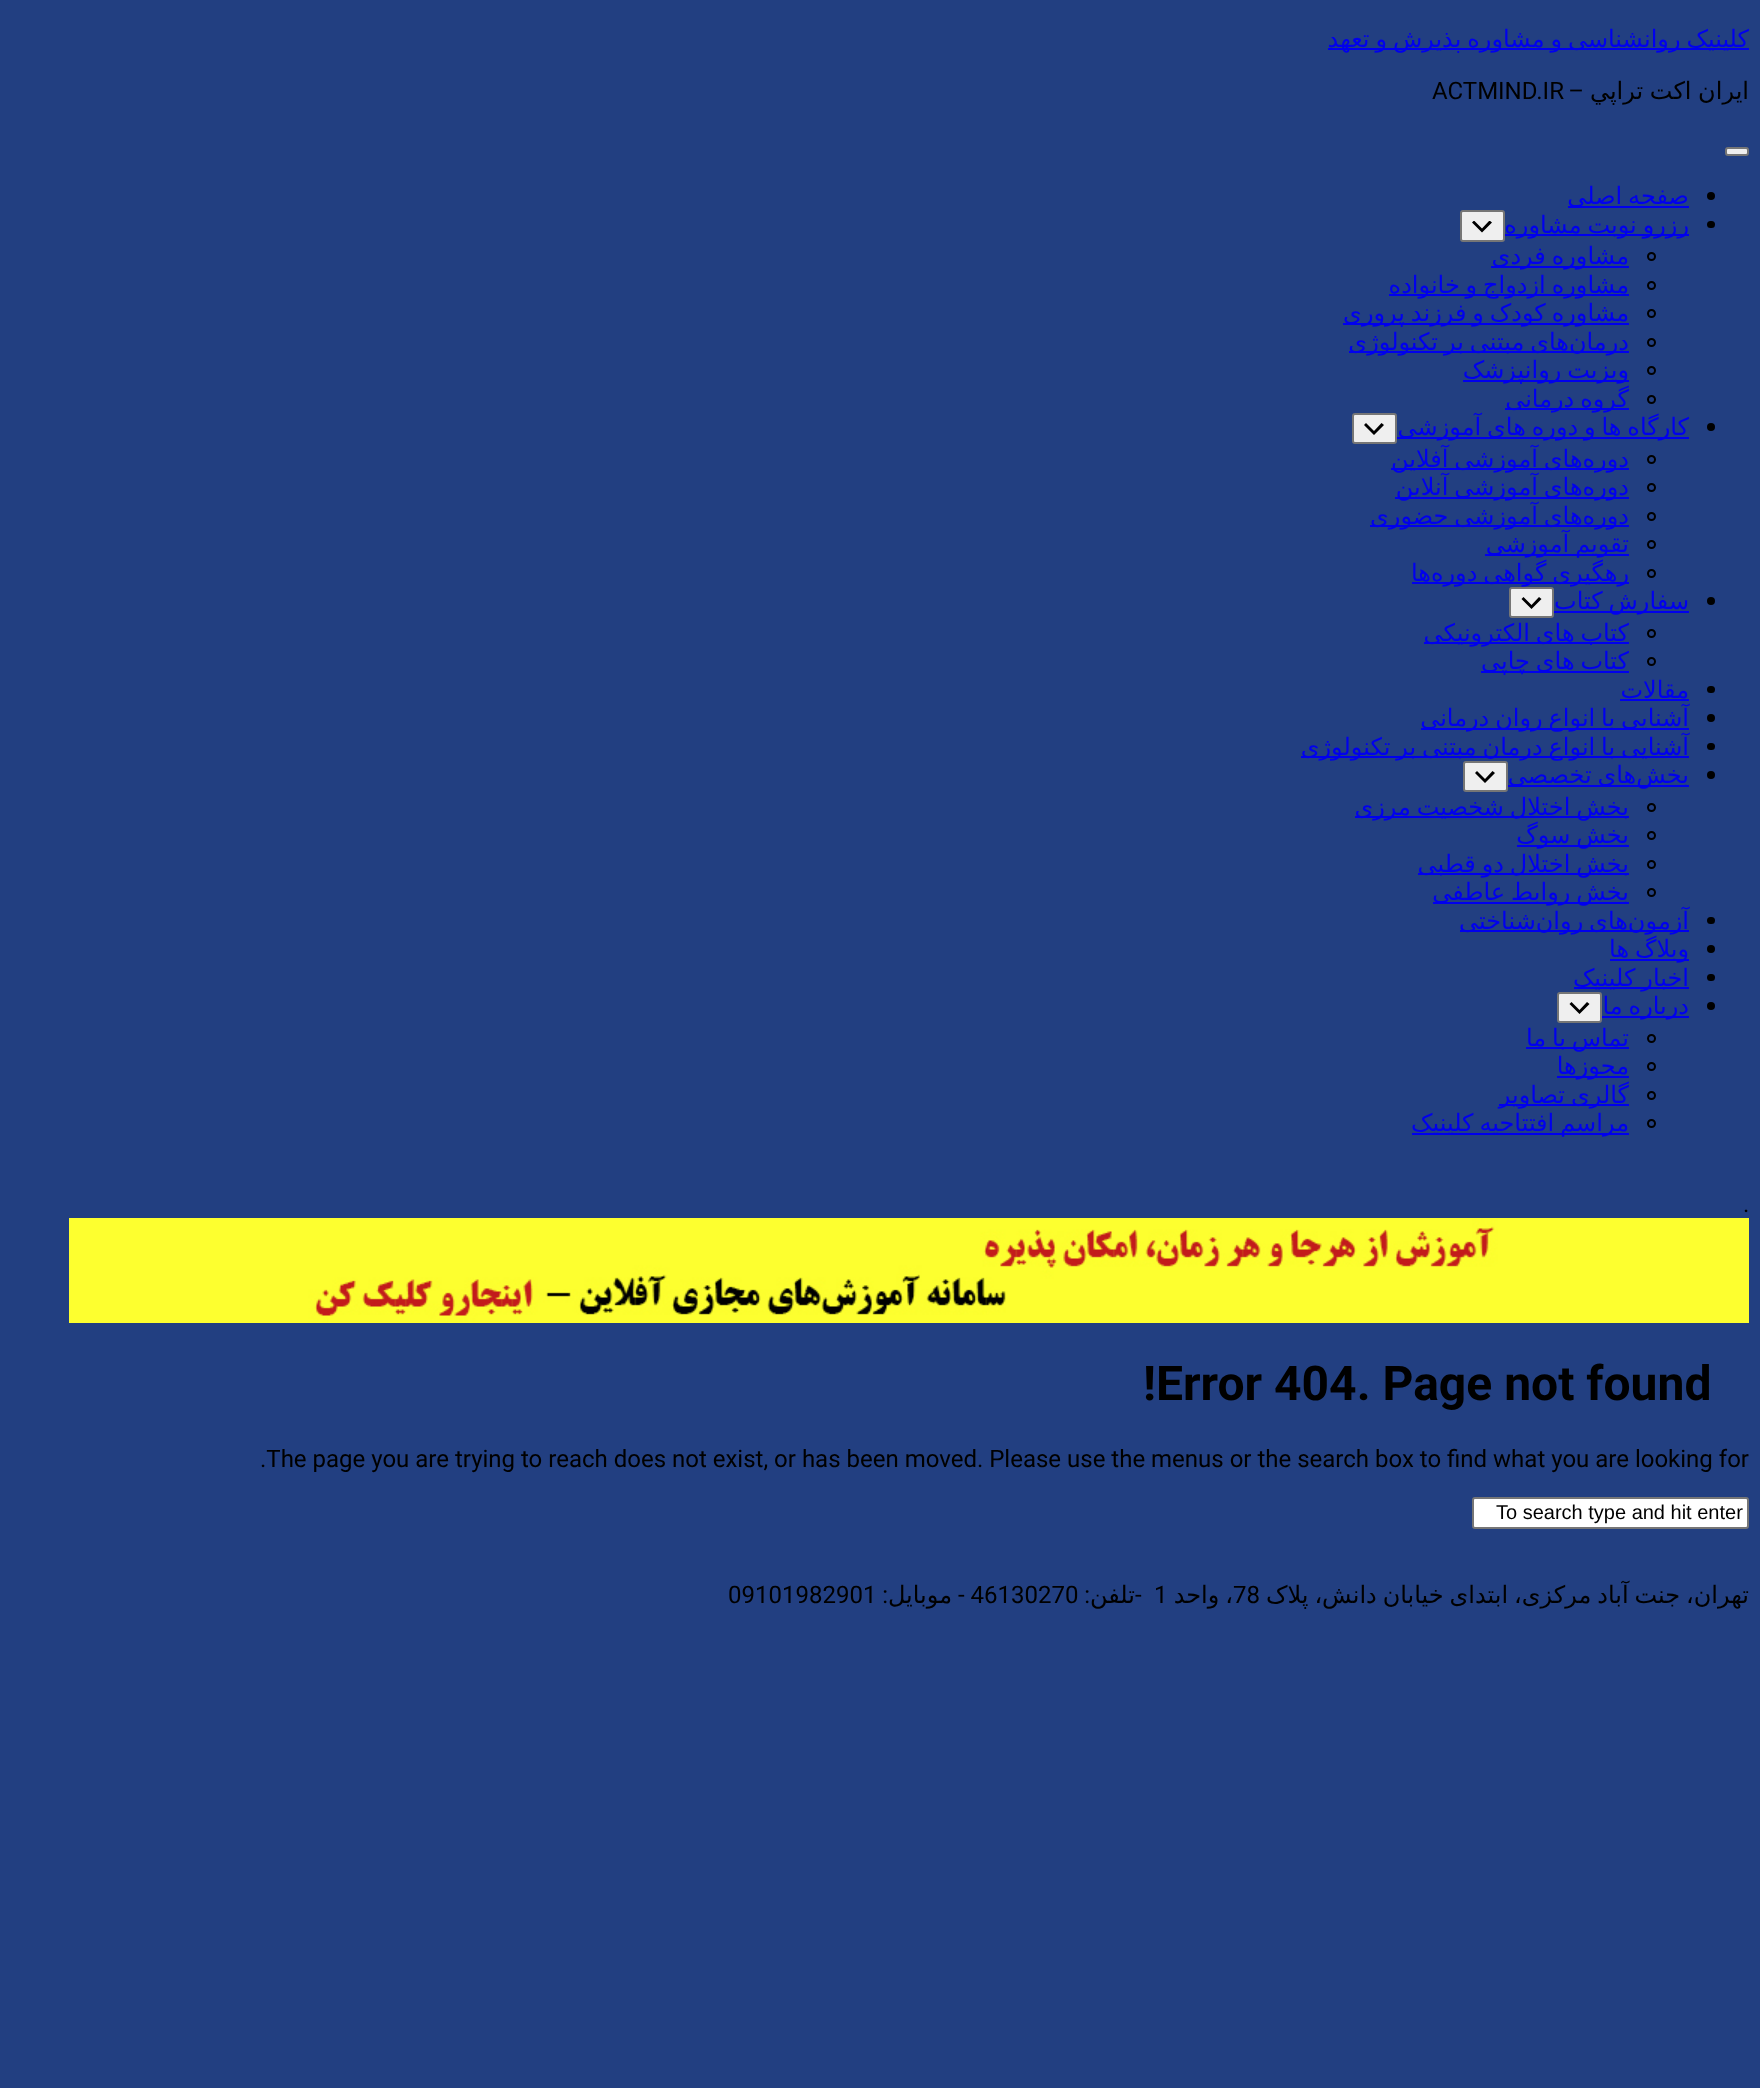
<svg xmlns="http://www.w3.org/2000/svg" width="1760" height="2088">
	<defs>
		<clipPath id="clip1"><rect x="1472" y="221" width="21" height="12" /></clipPath>
	</defs>
	<rect width="100%" height="100%" fill="#223F81" />
	<rect x="1328" y="48" width="421" height="2" fill="#0000EE" />
	<text x="1749" y="47" word-spacing="-1.75" font-family="DejaVu Sans" font-size="24" direction="rtl" fill="#0000EE">کلینیک روانشناسی و مشاوره پذیرش و تعهد</text>
	<text x="1749" y="99" word-spacing="-1" font-family="DejaVu Sans" font-size="24" direction="rtl" fill="#000000">ايران اكت تراپي</text>
	<text x="1584" y="99" font-family="Roboto" font-size="24" direction="rtl" fill="#000000">–</text>
	<text x="1432" y="99" font-family="Roboto" font-size="24" fill="#000000">ACTMIND.IR</text>
	<rect x="1726" y="148" width="22" height="7" rx="2" fill="#EFEFEF" stroke="#767676" stroke-width="2" />
	<circle cx="1711" cy="196" r="4" fill="#000000" />
	<rect x="1568" y="206" width="121" height="2" fill="#0000EE" />
	<text x="1689" y="204" word-spacing="-1.75" font-family="DejaVu Sans" font-size="24" direction="rtl" fill="#0000EE">صفحه اصلی</text>
	<rect x="1707" y="221" width="8" height="7" rx="3.5" fill="#000000" />
	<rect x="1505" y="234" width="184" height="2" fill="#0000EE" />
	<text x="1689" y="233" word-spacing="-1.75" font-family="DejaVu Sans" font-size="24" direction="rtl" fill="#0000EE">رزرو نوبت مشاوره</text>
	<rect x="1461" y="211" width="43" height="30" rx="2" fill="#EFEFEF" stroke="#767676" stroke-width="2" />
	<g clip-path="url(#clip1)">
		<path d="M1482 228.5L1489.5 220.5L1492 222.5L1482 232.5L1472 222.5L1474 220.5Z" fill="#000000" fill-rule="evenodd" />
	</g>
	<circle cx="1651.5" cy="256.5" r="3.5" fill="none" stroke="#000000" stroke-width="2" />
	<rect x="1491" y="266" width="138" height="2" fill="#0000EE" />
	<text x="1629" y="264" word-spacing="-1.75" font-family="DejaVu Sans" font-size="24" direction="rtl" fill="#0000EE">مشاوره فردی</text>
	<circle cx="1651.5" cy="285.5" r="3.5" fill="none" stroke="#000000" stroke-width="2" />
	<rect x="1389" y="294" width="240" height="2" fill="#0000EE" />
	<text x="1629" y="293" word-spacing="-1.75" font-family="DejaVu Sans" font-size="24" direction="rtl" fill="#0000EE">مشاوره ازدواج و خانواده</text>
	<circle cx="1651.5" cy="313.5" r="3.5" fill="none" stroke="#000000" stroke-width="2" />
	<rect x="1343" y="323" width="286" height="2" fill="#0000EE" />
	<text x="1629" y="321" word-spacing="-1.75" font-family="DejaVu Sans" font-size="24" direction="rtl" fill="#0000EE">مشاوره کودک و فرزند پروری</text>
	<circle cx="1651.5" cy="342.5" r="3.5" fill="none" stroke="#000000" stroke-width="2" />
	<rect x="1349" y="351" width="280" height="2" fill="#0000EE" />
	<text x="1629" y="350" word-spacing="-1.75" font-family="DejaVu Sans" font-size="24" direction="rtl" fill="#0000EE">درمان‌های مبتنی بر تکنولوژی</text>
	<circle cx="1651.5" cy="370.5" r="3.5" fill="none" stroke="#000000" stroke-width="2" />
	<rect x="1463" y="380" width="166" height="2" fill="#0000EE" />
	<text x="1629" y="378" word-spacing="-1.75" font-family="DejaVu Sans" font-size="24" direction="rtl" fill="#0000EE">ویزیت روانپزشک</text>
	<circle cx="1651.5" cy="399.5" r="3.5" fill="none" stroke="#000000" stroke-width="2" />
	<rect x="1505" y="408" width="124" height="2" fill="#0000EE" />
	<text x="1629" y="407" word-spacing="-1.75" font-family="DejaVu Sans" font-size="24" direction="rtl" fill="#0000EE">گروه درمانی</text>
	<circle cx="1711" cy="427" r="4" fill="#000000" />
	<rect x="1397" y="437" width="292" height="2" fill="#0000EE" />
	<text x="1689" y="435" word-spacing="-1.75" font-family="DejaVu Sans" font-size="24" direction="rtl" fill="#0000EE">کارگاه ها و دوره های آموزشی</text>
	<rect x="1353" y="414" width="43" height="29" rx="2" fill="#EFEFEF" stroke="#767676" stroke-width="2" />
	<path d="M1374 431L1381.5 423L1384 425L1374 435L1364 425L1366 423Z" fill="#000000" fill-rule="evenodd" />
	<circle cx="1651.5" cy="459.5" r="3.5" fill="none" stroke="#000000" stroke-width="2" />
	<rect x="1391" y="468" width="238" height="2" fill="#0000EE" />
	<text x="1629" y="467" word-spacing="-1.75" font-family="DejaVu Sans" font-size="24" direction="rtl" fill="#0000EE">دوره‌های آموزشی آفلاین</text>
	<circle cx="1651.5" cy="487.5" r="3.5" fill="none" stroke="#000000" stroke-width="2" />
	<rect x="1395" y="497" width="234" height="2" fill="#0000EE" />
	<text x="1629" y="495" word-spacing="-1.75" font-family="DejaVu Sans" font-size="24" direction="rtl" fill="#0000EE">دوره‌های آموزشی آنلاین</text>
	<circle cx="1651.5" cy="516.5" r="3.5" fill="none" stroke="#000000" stroke-width="2" />
	<rect x="1370" y="525" width="259" height="2" fill="#0000EE" />
	<text x="1629" y="524" word-spacing="-1.75" font-family="DejaVu Sans" font-size="24" direction="rtl" fill="#0000EE">دوره‌های آموزشی حضوری</text>
	<circle cx="1651.5" cy="544.5" r="3.5" fill="none" stroke="#000000" stroke-width="2" />
	<rect x="1485" y="554" width="144" height="2" fill="#0000EE" />
	<text x="1629" y="552" word-spacing="-1.75" font-family="DejaVu Sans" font-size="24" direction="rtl" fill="#0000EE">تقویم آموزشی</text>
	<circle cx="1651.5" cy="573.5" r="3.5" fill="none" stroke="#000000" stroke-width="2" />
	<rect x="1412" y="582" width="217" height="2" fill="#0000EE" />
	<text x="1629" y="581" word-spacing="-1.75" font-family="DejaVu Sans" font-size="24" direction="rtl" fill="#0000EE">رهگیری گواهی دوره‌ها</text>
	<circle cx="1711" cy="601" r="4" fill="#000000" />
	<rect x="1554" y="611" width="135" height="2" fill="#0000EE" />
	<text x="1689" y="609" word-spacing="-1.75" font-family="DejaVu Sans" font-size="24" direction="rtl" fill="#0000EE">سفارش کتاب</text>
	<rect x="1510" y="588" width="43" height="29" rx="2" fill="#EFEFEF" stroke="#767676" stroke-width="2" />
	<path d="M1531.5 605L1539 597L1541.5 599L1531.5 609L1521.5 599L1523.5 597Z" fill="#000000" fill-rule="evenodd" />
	<circle cx="1651.5" cy="633.5" r="3.5" fill="none" stroke="#000000" stroke-width="2" />
	<rect x="1424" y="642" width="205" height="2" fill="#0000EE" />
	<text x="1629" y="641" word-spacing="-1.75" font-family="DejaVu Sans" font-size="24" direction="rtl" fill="#0000EE">کتاب های الکترونیکی</text>
	<circle cx="1651.5" cy="661.5" r="3.5" fill="none" stroke="#000000" stroke-width="2" />
	<rect x="1481" y="671" width="148" height="2" fill="#0000EE" />
	<text x="1629" y="669" word-spacing="-1.75" font-family="DejaVu Sans" font-size="24" direction="rtl" fill="#0000EE">کتاب های چاپی</text>
	<rect x="1707" y="686" width="8" height="7" rx="3.5" fill="#000000" />
	<text x="1689" y="698" font-family="DejaVu Sans" font-size="24" direction="rtl" fill="#0000EE">مقالات</text>
	<rect x="1620" y="699" width="69" height="2" fill="#0000EE" />
	<circle cx="1711" cy="718" r="4" fill="#000000" />
	<rect x="1421" y="728" width="268" height="2" fill="#0000EE" />
	<text x="1689" y="726" word-spacing="-1.75" font-family="DejaVu Sans" font-size="24" direction="rtl" fill="#0000EE">آشنایی با انواع روان درمانی</text>
	<rect x="1707" y="743" width="8" height="7" rx="3.5" fill="#000000" />
	<rect x="1301" y="756" width="388" height="2" fill="#0000EE" />
	<text x="1689" y="755" word-spacing="-1.75" font-family="DejaVu Sans" font-size="24" direction="rtl" fill="#0000EE">آشنایی با انواع درمان مبتنی بر تکنولوژی</text>
	<circle cx="1711" cy="775" r="4" fill="#000000" />
	<rect x="1508" y="785" width="181" height="2" fill="#0000EE" />
	<text x="1689" y="783" word-spacing="-1.75" font-family="DejaVu Sans" font-size="24" direction="rtl" fill="#0000EE">بخش‌های تخصصی</text>
	<rect x="1464" y="762" width="43" height="29" rx="2" fill="#EFEFEF" stroke="#767676" stroke-width="2" />
	<path d="M1485 779L1492.5 771L1495 773L1485 783L1475 773L1477 771Z" fill="#000000" fill-rule="evenodd" />
	<circle cx="1651.5" cy="807.5" r="3.5" fill="none" stroke="#000000" stroke-width="2" />
	<rect x="1355" y="816" width="274" height="2" fill="#0000EE" />
	<text x="1629" y="815" word-spacing="-1.75" font-family="DejaVu Sans" font-size="24" direction="rtl" fill="#0000EE">بخش اختلال شخصیت مرزی</text>
	<circle cx="1651.5" cy="835.5" r="3.5" fill="none" stroke="#000000" stroke-width="2" />
	<rect x="1517" y="845" width="112" height="2" fill="#0000EE" />
	<text x="1629" y="843" word-spacing="-1.75" font-family="DejaVu Sans" font-size="24" direction="rtl" fill="#0000EE">بخش سوگ</text>
	<circle cx="1651.5" cy="864.5" r="3.5" fill="none" stroke="#000000" stroke-width="2" />
	<rect x="1418" y="873" width="211" height="2" fill="#0000EE" />
	<text x="1629" y="872" word-spacing="-1.75" font-family="DejaVu Sans" font-size="24" direction="rtl" fill="#0000EE">بخش اختلال دو قطبی</text>
	<circle cx="1651.5" cy="892.5" r="3.5" fill="none" stroke="#000000" stroke-width="2" />
	<rect x="1433" y="902" width="196" height="2" fill="#0000EE" />
	<text x="1629" y="900" word-spacing="-1.75" font-family="DejaVu Sans" font-size="24" direction="rtl" fill="#0000EE">بخش روابط عاطفی</text>
	<rect x="1707" y="917" width="8" height="7" rx="3.5" fill="#000000" />
	<rect x="1460" y="930" width="229" height="2" fill="#0000EE" />
	<text x="1689" y="929" word-spacing="-1.75" font-family="DejaVu Sans" font-size="24" direction="rtl" fill="#0000EE">آزمون‌های روان‌شناختی</text>
	<circle cx="1711" cy="949" r="4" fill="#000000" />
	<rect x="1610" y="959" width="79" height="2" fill="#0000EE" />
	<text x="1689" y="957" word-spacing="-1.75" font-family="DejaVu Sans" font-size="24" direction="rtl" fill="#0000EE">وبلاگ ها</text>
	<rect x="1707" y="974" width="8" height="7" rx="3.5" fill="#000000" />
	<rect x="1574" y="987" width="115" height="2" fill="#0000EE" />
	<text x="1689" y="986" word-spacing="-1.75" font-family="DejaVu Sans" font-size="24" direction="rtl" fill="#0000EE">اخبار کلینیک</text>
	<circle cx="1711" cy="1006" r="4" fill="#000000" />
	<rect x="1602" y="1016" width="87" height="2" fill="#0000EE" />
	<text x="1689" y="1014" word-spacing="-1.75" font-family="DejaVu Sans" font-size="24" direction="rtl" fill="#0000EE">درباره ما</text>
	<rect x="1558" y="993" width="43" height="29" rx="2" fill="#EFEFEF" stroke="#767676" stroke-width="2" />
	<path d="M1579.5 1010L1587 1002L1589.5 1004L1579.5 1014L1569.5 1004L1571.5 1002Z" fill="#000000" fill-rule="evenodd" />
	<circle cx="1651.5" cy="1038.5" r="3.5" fill="none" stroke="#000000" stroke-width="2" />
	<rect x="1526" y="1047" width="103" height="2" fill="#0000EE" />
	<text x="1629" y="1046" word-spacing="-1.75" font-family="DejaVu Sans" font-size="24" direction="rtl" fill="#0000EE">تماس با ما</text>
	<circle cx="1651.5" cy="1066.5" r="3.5" fill="none" stroke="#000000" stroke-width="2" />
	<rect x="1557" y="1076" width="72" height="2" fill="#0000EE" />
	<text x="1629" y="1074" font-family="DejaVu Sans" font-size="24" direction="rtl" fill="#0000EE">مجوزها</text>
	<circle cx="1651.5" cy="1095.5" r="3.5" fill="none" stroke="#000000" stroke-width="2" />
	<rect x="1499" y="1104" width="130" height="2" fill="#0000EE" />
	<text x="1629" y="1103" word-spacing="-1.75" font-family="DejaVu Sans" font-size="24" direction="rtl" fill="#0000EE">گالری تصاویر</text>
	<circle cx="1651.5" cy="1123.5" r="3.5" fill="none" stroke="#000000" stroke-width="2" />
	<rect x="1412" y="1133" width="217" height="2" fill="#0000EE" />
	<text x="1629" y="1131" word-spacing="-1.75" font-family="DejaVu Sans" font-size="24" direction="rtl" fill="#0000EE">مراسم افتتاحیه کلینیک</text>
	<text x="1743" y="1212" font-family="Roboto" font-size="24" fill="#000000">.</text>
	<image x="69" y="1218" width="1680" height="105" href="assets/img1.png" />
	<g font-family="Roboto" font-size="48" font-weight="700" fill="#000000">
		<text x="1156" y="1400">Error 404. Page not found</text>
		<text x="1143" y="1400">!</text>
	</g>
	<text x="260" y="1467" font-family="Roboto" font-size="24" fill="#000000">.The page you are trying to reach does not exist, or has been moved. Please use the menus or the search box to find what you are looking for</text>
	<rect x="1473" y="1498" width="275" height="30" rx="2" fill="#FFFFFF" stroke="#767676" stroke-width="2" />
	<text x="1496" y="1519" font-family="Liberation Sans" font-size="20" fill="#000000">To search type and hit enter</text>
	<text x="1749" y="1603" word-spacing="-1.75" font-family="DejaVu Sans" font-size="24" direction="rtl" fill="#000000">تهران، جنت آباد مرکزی، ابتدای خیابان دانش، پلاک</text>
	<text x="1233" y="1603" font-family="Roboto" font-size="24" fill="#000000">78</text>
	<text x="1233" y="1603" word-spacing="-1.75" font-family="DejaVu Sans" font-size="24" direction="rtl" fill="#000000">، واحد</text>
	<g font-family="Roboto" font-size="24" fill="#000000">
		<text x="1154" y="1603">1</text>
		<text x="1135" y="1603">-</text>
	</g>
	<text x="1135" y="1603" font-family="DejaVu Sans" font-size="24" direction="rtl" fill="#000000">تلفن</text>
	<text x="1090" y="1603" font-family="Roboto" font-size="24" direction="rtl" fill="#000000">:</text>
	<text x="958" y="1603" font-family="Roboto" font-size="24" fill="#000000">- 46130270</text>
	<text x="952" y="1603" font-family="DejaVu Sans" font-size="24" direction="rtl" fill="#000000">موبایل</text>
	<text x="888" y="1603" font-family="Roboto" font-size="24" direction="rtl" fill="#000000">:</text>
	<text x="728" y="1603" font-family="Roboto" font-size="24" fill="#000000">09101982901</text>
</svg>
